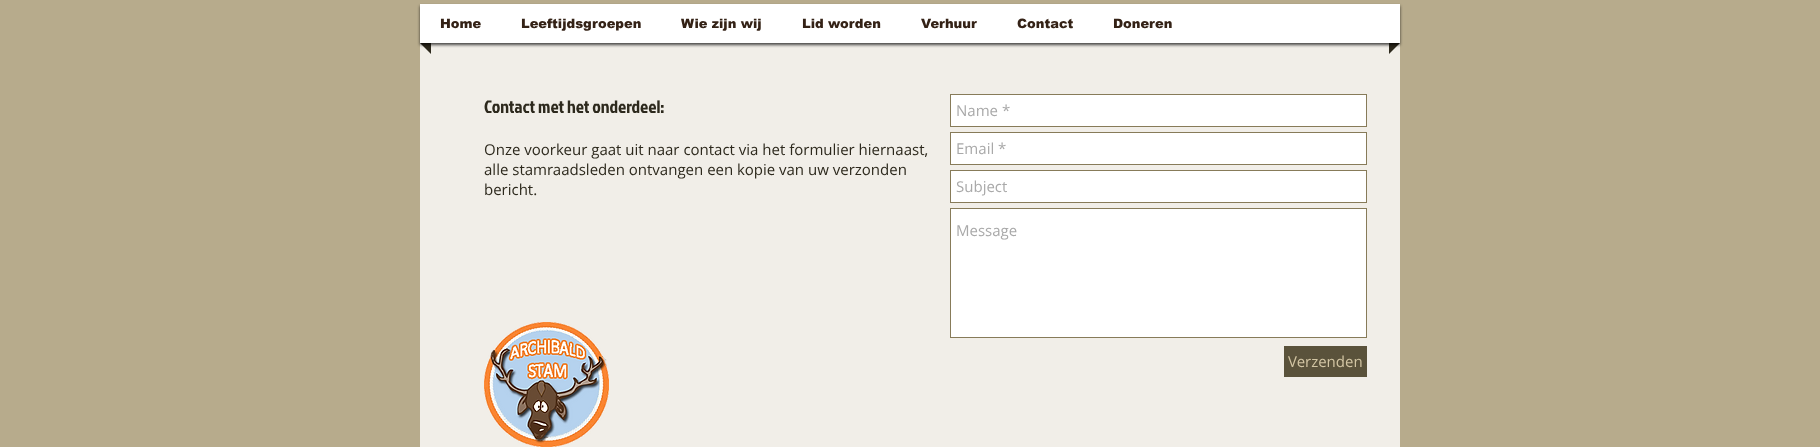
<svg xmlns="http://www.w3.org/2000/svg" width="1820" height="447">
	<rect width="100%" height="100%" fill="#B7AB8C" />
	<rect x="420" y="43" width="980" height="404" fill="#F1EEE8" />
	<path d="M420 43H431V54Z" fill="#2D291D" />
	<path d="M1389 43H1400L1389 54Z" fill="#2D291D" />
	<rect x="420" y="6" width="980" height="39" fill="#000000" fill-opacity="0.7" filter="blur(1.5px)" />
	<rect x="420" y="4" width="980" height="39" fill="#FFFFFF" />
	<g font-family="arial" font-size="13" font-weight="900" fill="#342216">
		<text x="440" y="28">Home</text>
		<text x="521" y="28">Leeftijdsgroepen</text>
		<text x="681" y="28">Wie zijn wij</text>
		<text x="802" y="28">Lid worden</text>
		<text x="921" y="28">Verhuur</text>
		<text x="1017" y="28">Contact</text>
		<text x="1113" y="28">Doneren</text>
	</g>
	<text x="484" y="113" font-family="Jockey One" font-size="18" fill="#2D291D">Contact met het onderdeel:</text>
	<g font-family="Open Sans" font-size="15" fill="#2D291D">
		<text x="484" y="155">Onze voorkeur gaat uit naar contact via het formulier hiernaast,</text>
		<text x="484" y="175">alle stamraadsleden ontvangen een kopie van uw verzonden</text>
		<text x="484" y="195">bericht.</text>
	</g>
	<rect x="950.5" y="94.5" width="416" height="32" fill="#FFFFFF" stroke="#877B59" />
	<text x="956" y="116" font-family="Open Sans" font-size="15" fill="#A9A9A9">Name *</text>
	<rect x="950.5" y="132.5" width="416" height="32" fill="#FFFFFF" stroke="#877B59" />
	<text x="956" y="154" font-family="Open Sans" font-size="15" fill="#A9A9A9">Email *</text>
	<rect x="950.5" y="170.5" width="416" height="32" fill="#FFFFFF" stroke="#877B59" />
	<text x="956" y="192" font-family="Open Sans" font-size="15" fill="#A9A9A9">Subject</text>
	<rect x="950.5" y="208.5" width="416" height="129" fill="#FFFFFF" stroke="#877B59" />
	<text x="956" y="236" font-family="Open Sans" font-size="15" fill="#A9A9A9">Message</text>
	<rect x="1284" y="346" width="83" height="31" fill="#5A523B" />
	<text x="1288" y="367" font-family="Open Sans" font-size="15" fill="#D2C5A3">Verzenden</text>
	<image x="484" y="322" width="125" height="125" href="assets/img1.png" />
</svg>
